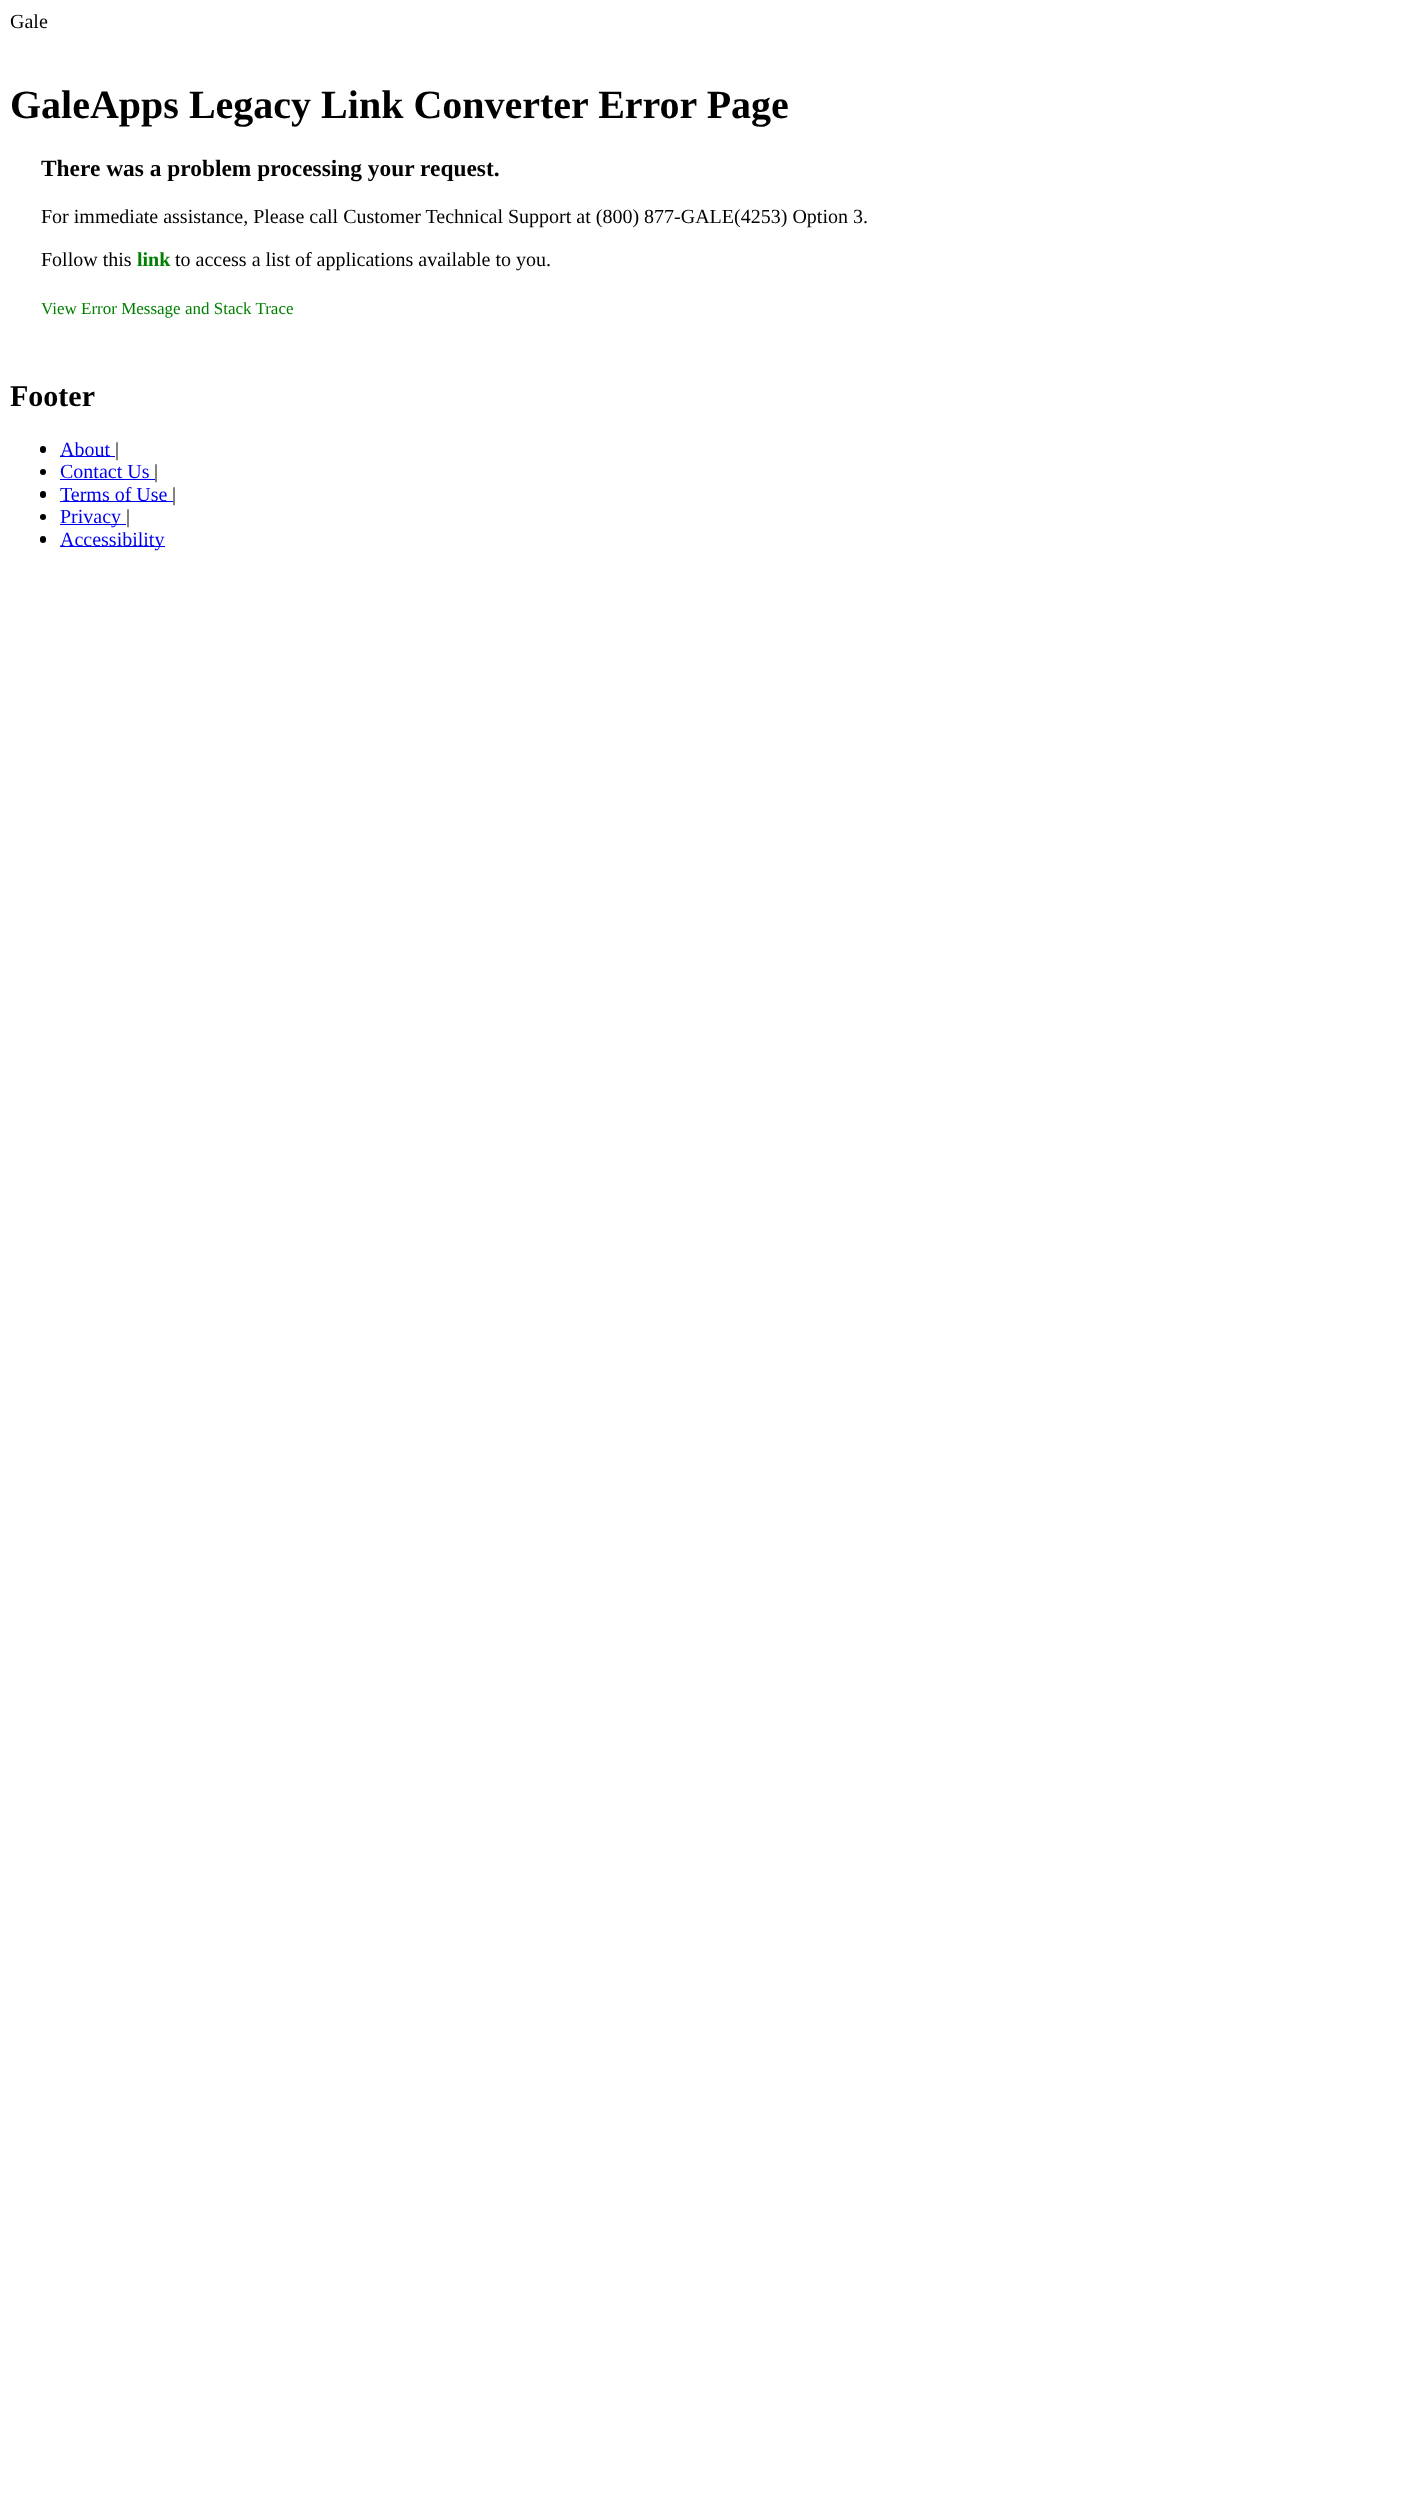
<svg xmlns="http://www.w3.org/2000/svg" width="1412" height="2513">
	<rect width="100%" height="100%" fill="#FFFFFF" />
	<text x="10" y="28" font-family="Liberation Serif" font-size="20" fill="#000000">Gale</text>
	<text x="10" y="118" font-family="Liberation Serif" font-size="40" font-weight="700" fill="#000000">GaleApps Legacy Link Converter Error Page</text>
	<text x="41" y="176" font-family="Liberation Serif" font-size="23.4" font-weight="700" fill="#000000">There was a problem processing your request.</text>
	<g font-family="Liberation Serif" font-size="20" fill="#000000">
		<text x="41" y="223">For immediate assistance, Please call Customer Technical Support at (800) 877-GALE(4253) Option 3.</text>
		<text x="41" y="266">Follow this</text>
	</g>
	<text x="137" y="266" font-family="Liberation Serif" font-size="20" font-weight="700" fill="#008000">link</text>
	<text x="175" y="266" font-family="Liberation Serif" font-size="20" fill="#000000">to access a list of applications available to you.</text>
	<text x="41" y="314" font-family="Liberation Serif" font-size="17" fill="#008000">View Error Message and Stack Trace</text>
	<text x="10" y="406" font-family="Liberation Serif" font-size="30" font-weight="700" fill="#000000">Footer</text>
	<rect x="40" y="446" width="6" height="7" rx="3" fill="#000000" />
	<rect x="60" y="456" width="55" height="1" fill="#0000EE" />
	<text x="60" y="456" font-family="Liberation Serif" font-size="20" fill="#0000EE">About</text>
	<text x="115" y="456" font-family="Liberation Serif" font-size="20" fill="#000000">|</text>
	<circle cx="43" cy="472" r="3" fill="#000000" />
	<text x="60" y="478" font-family="Liberation Serif" font-size="20" fill="#0000EE">Contact Us</text>
	<rect x="60" y="479" width="95" height="1" fill="#0000EE" />
	<text x="154" y="478" font-family="Liberation Serif" font-size="20" fill="#000000">|</text>
	<rect x="40" y="491" width="6" height="7" rx="3" fill="#000000" />
	<rect x="60" y="501" width="113" height="1" fill="#0000EE" />
	<text x="60" y="501" font-family="Liberation Serif" font-size="20" fill="#0000EE">Terms of Use</text>
	<text x="172" y="501" font-family="Liberation Serif" font-size="20" fill="#000000">|</text>
	<circle cx="43" cy="517" r="3" fill="#000000" />
	<rect x="60" y="524" width="66" height="1" fill="#0000EE" />
	<text x="60" y="523" font-family="Liberation Serif" font-size="20" fill="#0000EE">Privacy</text>
	<text x="126" y="523" font-family="Liberation Serif" font-size="20" fill="#000000">|</text>
	<rect x="40" y="536" width="6" height="7" rx="3" fill="#000000" />
	<rect x="60" y="546" width="105" height="1" fill="#0000EE" />
	<text x="60" y="546" font-family="Liberation Serif" font-size="20" fill="#0000EE">Accessibility</text>
</svg>
